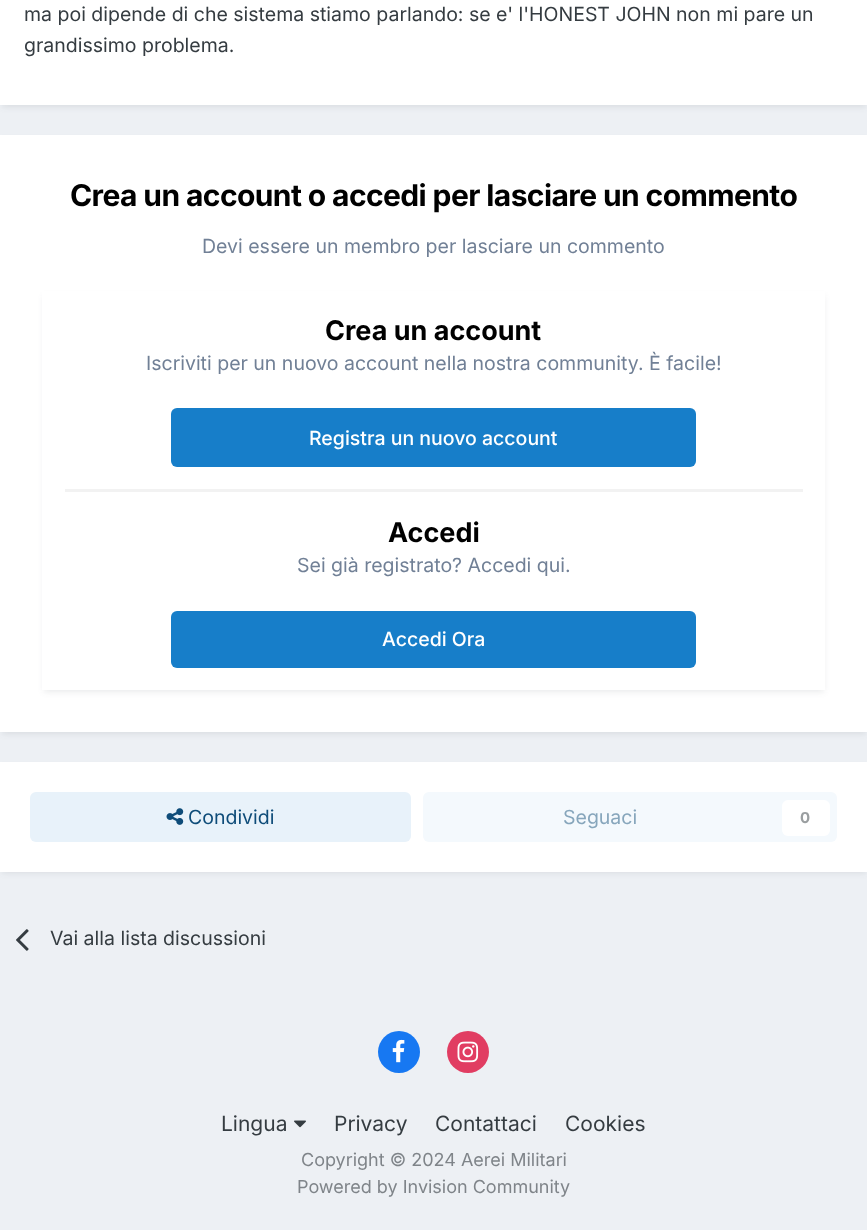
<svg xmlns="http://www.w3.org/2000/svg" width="867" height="1230">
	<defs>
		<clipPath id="clip1"><path d="M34 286H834V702H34ZM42 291H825V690H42Z" clip-rule="evenodd" /></clipPath>
	</defs>
	<rect width="100%" height="100%" fill="#EDF0F4" />
	<rect x="2" y="-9" width="864" height="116" fill="#2D3748" fill-opacity="0.1" filter="blur(3px)" />
	<rect x="0" y="0" width="867" height="105" fill="#FFFFFF" />
	<g font-family="Inter" font-size="19.5" fill="#353C41">
		<text x="24" y="21">ma poi dipende di che sistema stiamo parlando: se e' l'HONEST JOHN non mi pare un</text>
		<text x="24" y="52">grandissimo problema.</text>
	</g>
	<rect x="2" y="140" width="864" height="594" fill="#2D3748" fill-opacity="0.1" filter="blur(3px)" />
	<rect x="0" y="135" width="867" height="597" fill="#FFFFFF" />
	<text x="70" y="206" font-family="Inter" font-size="30" font-weight="700" letter-spacing="-0.6" fill="#000000">Crea un account o accedi per lasciare un commento</text>
	<text x="202" y="253" font-family="Inter" font-size="19.5" fill="#718096">Devi essere un membro per lasciare un commento</text>
	<g clip-path="url(#clip1)">
		<rect x="44" y="296" width="780" height="396" fill="#2D3748" fill-opacity="0.1" filter="blur(3px)" />
	</g>
	<rect x="65" y="489" width="738" height="3" fill="#F2F2F2" />
	<text x="325" y="340" font-family="Inter" font-size="27" font-weight="700" fill="#000000">Crea un account</text>
	<text x="146" y="370" font-family="Inter" font-size="19.5" fill="#718096">Iscriviti per un nuovo account nella nostra community. È facile!</text>
	<rect x="171" y="408" width="525" height="59" rx="6" fill="#177EC9" />
	<text x="309" y="445" font-family="Inter" font-size="19.5" font-weight="500" fill="#FFFFFF">Registra un nuovo account</text>
	<text x="388" y="542" font-family="Inter" font-size="27" font-weight="700" fill="#000000">Accedi</text>
	<text x="297" y="572" font-family="Inter" font-size="19.5" fill="#718096">Sei già registrato? Accedi qui.</text>
	<rect x="171" y="611" width="525" height="57" rx="6" fill="#177EC9" />
	<text x="382" y="646" font-family="Inter" font-size="19.5" font-weight="500" fill="#FFFFFF">Accedi Ora</text>
	<rect x="2" y="767" width="864" height="106" fill="#2D3748" fill-opacity="0.1" filter="blur(3px)" />
	<rect x="0" y="762" width="867" height="110" fill="#FFFFFF" />
	<rect x="30" y="792" width="381" height="50" rx="6" fill="#E8F2FA" />
	<image x="166" y="808" width="18" height="17" href="assets/img1.png" />
	<text x="188" y="824" font-family="Inter" font-size="19.5" fill="#0E4C79">Condividi</text>
	<rect x="423" y="792" width="414" height="50" rx="6" fill="#F4F9FD" />
	<text x="563" y="824" font-family="Inter" font-size="19.5" fill="#87A6BC">Seguaci</text>
	<rect x="782" y="800" width="48" height="36" rx="6" fill="#FFFFFF" />
	<text x="800" y="823" font-family="Inter" font-size="15" font-weight="700" fill="#9A9EA0">0</text>
	<image x="16" y="929" width="13" height="22" href="assets/img2.png" />
	<text x="50" y="945" font-family="Inter" font-size="19.5" fill="#353C41">Vai alla lista discussioni</text>
	<circle cx="399" cy="1052" r="21" fill="#1778F2" />
	<image x="392" y="1039" width="13" height="24" href="assets/img3.png" />
	<circle cx="468" cy="1052" r="21" fill="#E13D62" />
	<image x="457" y="1041" width="22" height="22" href="assets/img4.png" />
	<text x="221" y="1131" font-family="Inter" font-size="21" fill="#353C41">Lingua</text>
	<image x="294" y="1120" width="12" height="8" href="assets/img5.png" />
	<g font-family="Inter" font-size="21" fill="#353C41">
		<text x="334" y="1131">Privacy</text>
		<text x="435" y="1131">Contattaci</text>
		<text x="565" y="1131">Cookies</text>
	</g>
	<g font-family="Inter" font-size="18" fill="#7F8489">
		<text x="301" y="1166">Copyright © 2024 Aerei Militari</text>
		<text x="297" y="1193">Powered by Invision Community</text>
	</g>
</svg>
